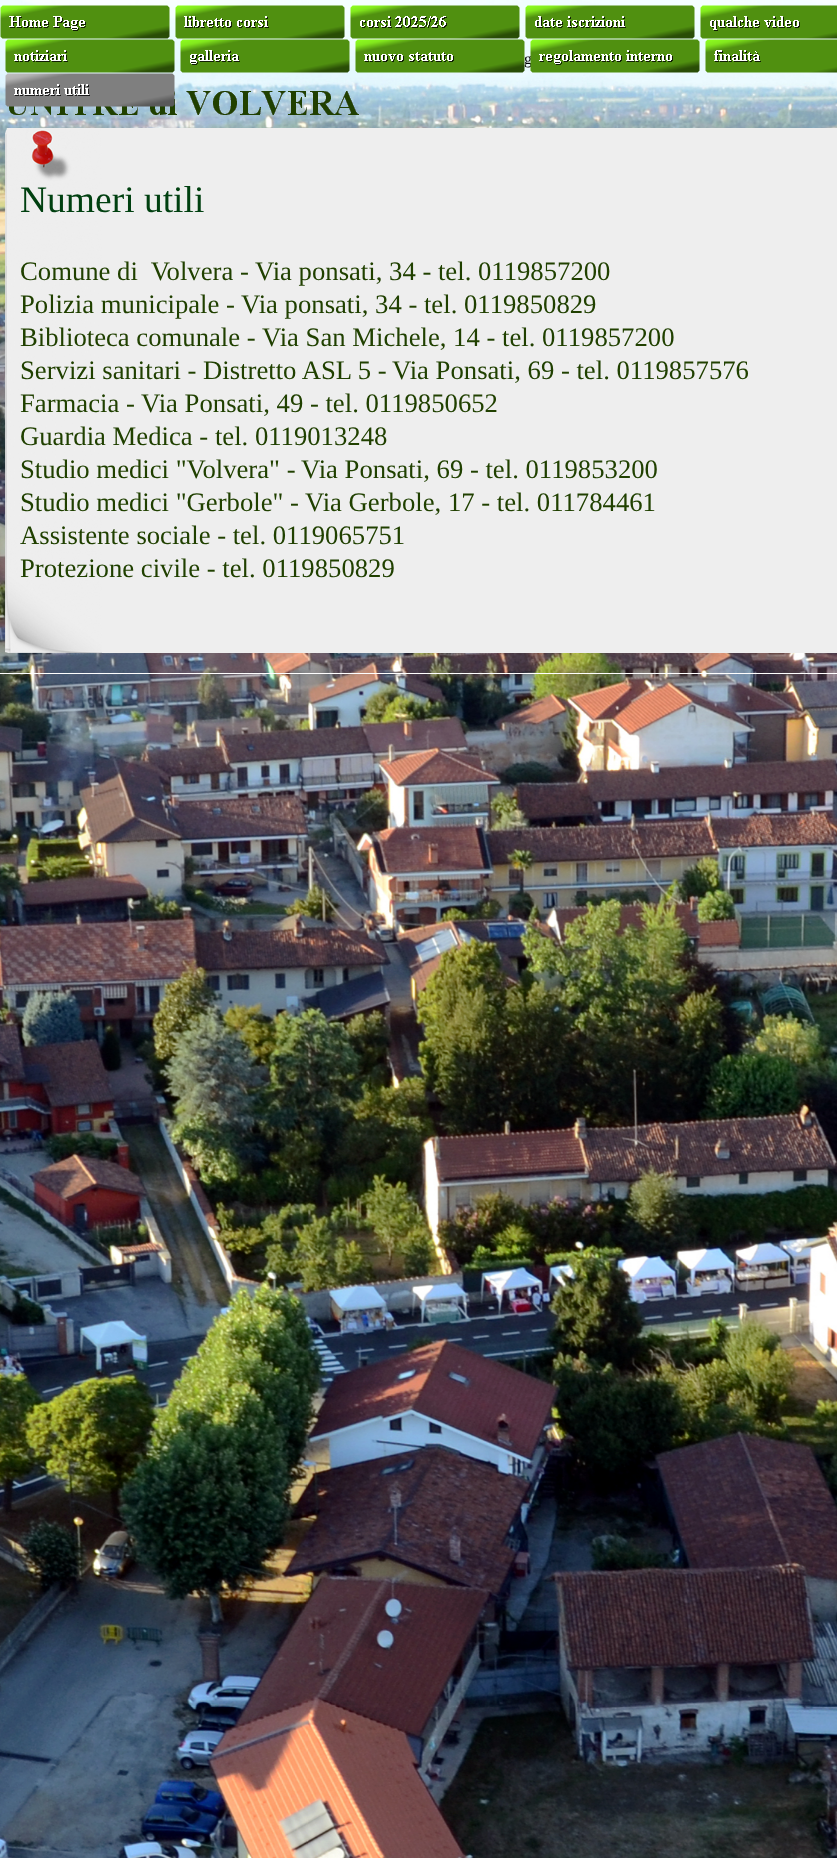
<svg xmlns="http://www.w3.org/2000/svg" width="837" height="1858">
	<rect width="100%" height="100%" fill="#FFFFFF" />
	<image x="0" y="0" width="837" height="1858" href="assets/img1.png" />
	<image x="0" y="5" width="170" height="34" href="assets/img2.png" />
	<image x="175" y="5" width="170" height="34" href="assets/img3.png" />
	<image x="350" y="5" width="170" height="34" href="assets/img4.png" />
	<image x="525" y="5" width="170" height="34" href="assets/img5.png" />
	<image x="700" y="5" width="137" height="34" href="assets/img6.png" />
	<image x="5" y="39" width="170" height="34" href="assets/img7.png" />
	<image x="180" y="39" width="170" height="34" href="assets/img8.png" />
	<text x="524" y="64" font-family="Liberation Serif" font-size="16" fill="#000000">g</text>
	<image x="355" y="39" width="170" height="34" href="assets/img9.png" />
	<image x="530" y="39" width="170" height="34" href="assets/img10.png" />
	<image x="705" y="39" width="132" height="34" href="assets/img11.png" />
	<image x="9" y="91" width="350" height="24" href="assets/img13.png" />
	<image x="5" y="73" width="170" height="34" href="assets/img12.png" />
	<image x="5" y="128" width="97" height="138" href="assets/img14.png" />
	<rect x="102" y="128" width="735" height="525" fill="#EEEEEE" />
	<text x="20" y="212" font-family="Liberation Serif" font-size="37.5" fill="#004010">Numeri utili</text>
	<image x="5" y="266" width="97" height="249" href="assets/img15.png" />
	<g font-family="Liberation Serif" font-size="26.7" fill="#204000">
		<text x="20" y="280" xml:space="preserve">Comune di  Volvera -</text>
		<text x="255" y="280">Via ponsati, 34 - tel. 0119857200</text>
		<text x="20" y="313">Polizia municipale -</text>
		<text x="241" y="313">Via ponsati, 34 - tel. 0119850829</text>
		<text x="20" y="346">Biblioteca comunale -</text>
		<text x="262" y="346">Via San Michele, 14 - tel. 0119857200</text>
		<text x="20" y="379">Servizi sanitari - Distretto ASL 5 -</text>
		<text x="392" y="379">Via Ponsati, 69 - tel. 0119857576</text>
		<text x="20" y="412">Farmacia -</text>
		<text x="141" y="412">Via Ponsati, 49 - tel. 0119850652</text>
		<text x="20" y="445">Guardia Medica - tel. 0119013248</text>
		<text x="20" y="478">Studio medici "Volvera" -</text>
		<text x="301" y="478">Via Ponsati, 69 - tel. 0119853200</text>
		<text x="20" y="511">Studio medici "Gerbole" -</text>
		<text x="305" y="511">Via Gerbole, 17 - tel. 011784461</text>
	</g>
	<image x="5" y="515" width="97" height="138" href="assets/img16.png" />
	<g font-family="Liberation Serif" font-size="26.7" fill="#204000">
		<text x="20" y="544">Assistente sociale - tel. 0119065751</text>
		<text x="20" y="577">Protezione civile - tel. 0119850829</text>
	</g>
	<rect x="0" y="673" width="837" height="1" fill="#FFFFFF" />
</svg>
